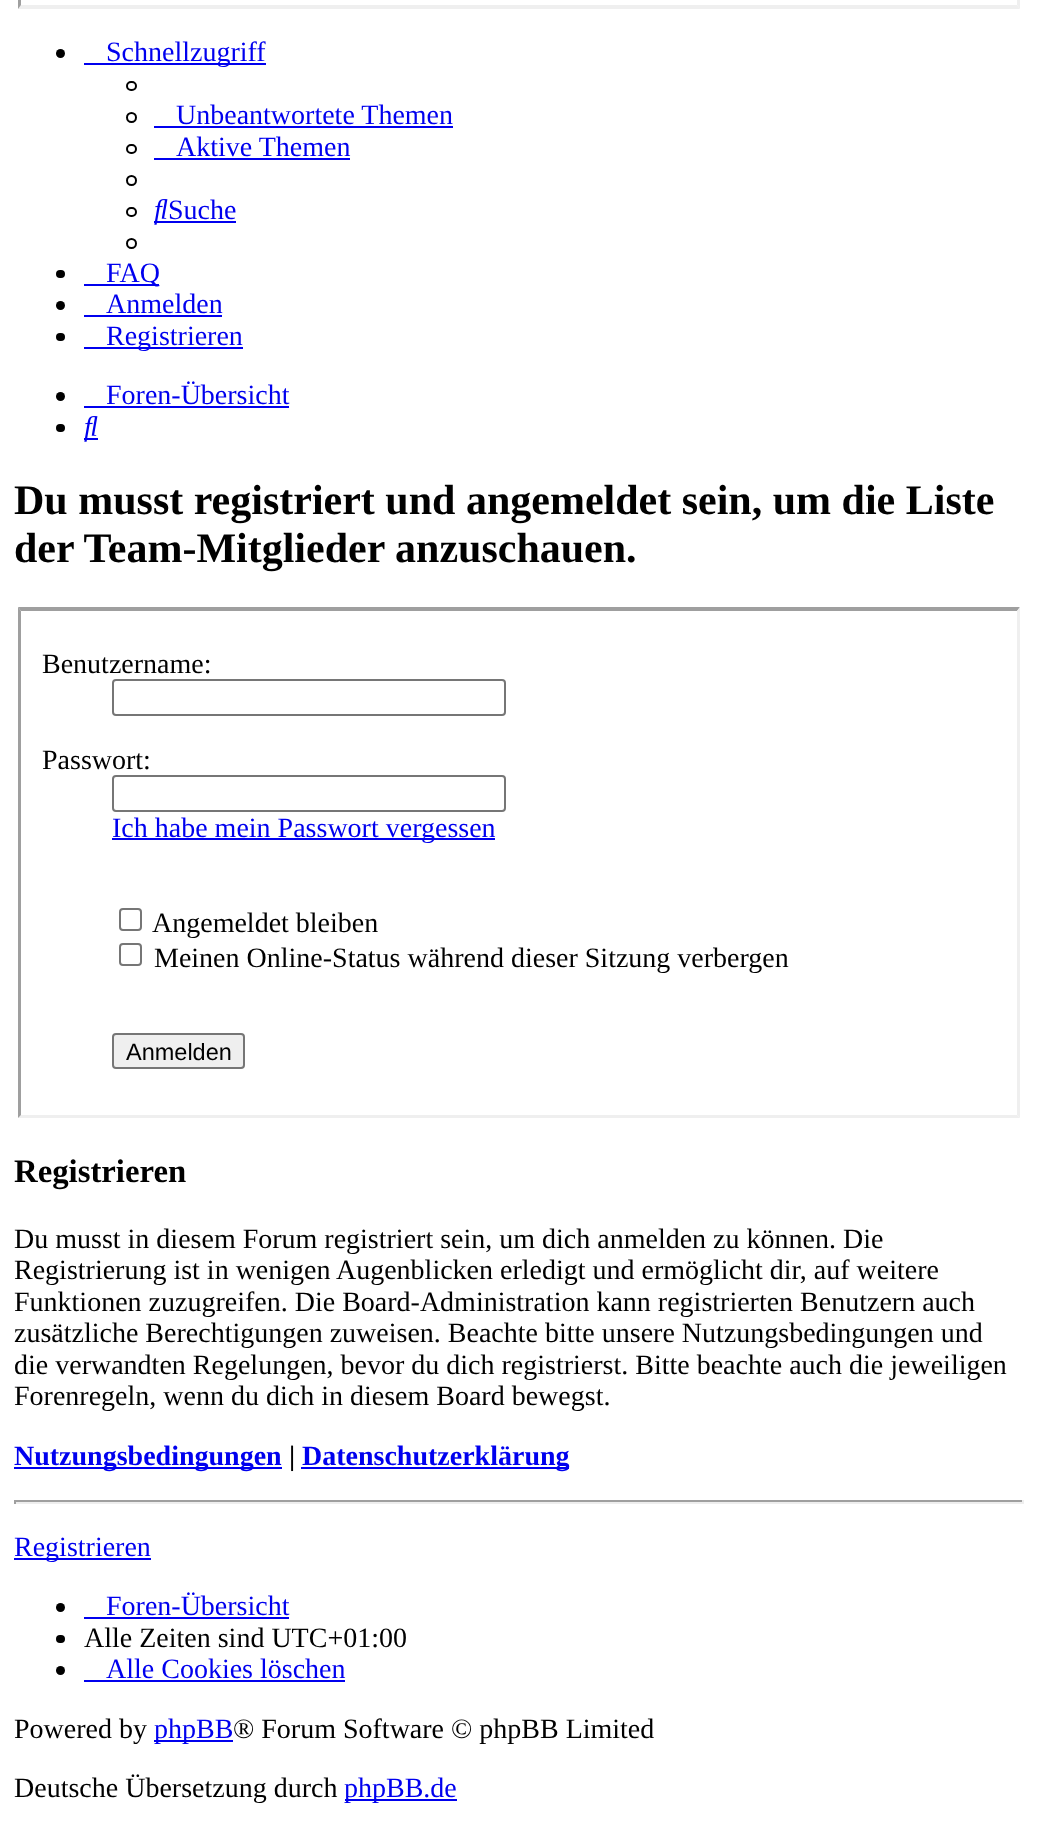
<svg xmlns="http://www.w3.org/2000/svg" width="1037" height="1830">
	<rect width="100%" height="100%" fill="#FFFFFF" />
	<path d="M1020-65V9L1017 5V-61Z" fill="#EFEFEF" />
	<path d="M1020 9H18L21 5H1017Z" fill="#EFEFEF" />
	<path d="M18 9V-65L21-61V5Z" fill="#9F9F9F" />
	<circle cx="60.5" cy="53.5" r="4.5" fill="#000000" />
	<rect x="84" y="63" width="182" height="2" fill="#0000EE" />
	<text x="106" y="61" font-family="Liberation Serif" font-size="28" fill="#0000EE">Schnellzugriff</text>
	<rect x="127" y="82" width="9" height="8" rx="4" fill="none" stroke="#000000" stroke-width="2" />
	<circle cx="131.5" cy="117.5" r="4.5" fill="none" stroke="#000000" stroke-width="2" />
	<text x="176" y="124" font-family="Liberation Serif" font-size="28" fill="#0000EE">Unbeantwortete Themen</text>
	<rect x="154" y="126" width="299" height="2" fill="#0000EE" />
	<rect x="127" y="145" width="9" height="8" rx="4" fill="none" stroke="#000000" stroke-width="2" />
	<text x="176" y="156" font-family="Liberation Serif" font-size="28" fill="#0000EE">Aktive Themen</text>
	<rect x="154" y="158" width="196" height="2" fill="#0000EE" />
	<circle cx="131.5" cy="180.5" r="4.5" fill="none" stroke="#000000" stroke-width="2" />
	<rect x="127" y="208" width="9" height="8" rx="4" fill="none" stroke="#000000" stroke-width="2" />
	<rect x="154" y="221" width="82" height="2" fill="#0000EE" />
	<image x="154" y="199" width="14" height="26" href="assets/img1.png" />
	<text x="168" y="219" font-family="Liberation Serif" font-size="28" fill="#0000EE">Suche</text>
	<circle cx="131.5" cy="243.5" r="4.5" fill="none" stroke="#000000" stroke-width="2" />
	<rect x="56" y="270" width="9" height="8" rx="4" fill="#000000" />
	<rect x="84" y="284" width="75" height="2" fill="#0000EE" />
	<text x="106" y="282" font-family="Liberation Serif" font-size="28" fill="#0000EE">FAQ</text>
	<circle cx="60.5" cy="305.5" r="4.5" fill="#000000" />
	<text x="106" y="313" font-family="Liberation Serif" font-size="28" fill="#0000EE">Anmelden</text>
	<rect x="84" y="315" width="138" height="2" fill="#0000EE" />
	<rect x="56" y="333" width="9" height="8" rx="4" fill="#000000" />
	<rect x="84" y="347" width="159" height="2" fill="#0000EE" />
	<text x="106" y="345" font-family="Liberation Serif" font-size="28" fill="#0000EE">Registrieren</text>
	<circle cx="60.5" cy="396.5" r="4.5" fill="#000000" />
	<text x="106" y="404" font-family="Liberation Serif" font-size="28" fill="#0000EE">Foren-Übersicht</text>
	<rect x="84" y="406" width="205" height="2" fill="#0000EE" />
	<rect x="56" y="424" width="9" height="8" rx="4" fill="#000000" />
	<rect x="84" y="438" width="14" height="2" fill="#0000EE" />
	<image x="84" y="416" width="14" height="26" href="assets/img1.png" />
	<g font-family="Liberation Serif" font-size="42" font-weight="700" fill="#000000">
		<text x="14" y="514">Du musst registriert und angemeldet sein, um die Liste</text>
		<text x="14" y="562">der Team-Mitglieder anzuschauen.</text>
	</g>
	<path d="M18 607H1020L1017 611H21Z" fill="#9F9F9F" />
	<path d="M1020 607V1118L1017 1115V611Z" fill="#EFEFEF" />
	<path d="M1020 1118H18L21 1115H1017Z" fill="#EFEFEF" />
	<path d="M18 1118V607L21 611V1115Z" fill="#9F9F9F" />
	<text x="42" y="673" font-family="Liberation Serif" font-size="28" fill="#000000">Benutzername:</text>
	<rect x="113" y="680" width="392" height="35" rx="3" fill="none" stroke="#767676" stroke-width="2" />
	<text x="42" y="769" font-family="Liberation Serif" font-size="28" fill="#000000">Passwort:</text>
	<rect x="113" y="776" width="392" height="35" rx="3" fill="none" stroke="#767676" stroke-width="2" />
	<rect x="112" y="838" width="383" height="2" fill="#0000EE" />
	<text x="112" y="837" font-family="Liberation Serif" font-size="28" fill="#0000EE">Ich habe mein Passwort vergessen</text>
	<rect x="120" y="909" width="21" height="21" rx="3" fill="none" stroke="#767676" stroke-width="2" />
	<text x="152" y="932" font-family="Liberation Serif" font-size="28" fill="#000000">Angemeldet bleiben</text>
	<rect x="120" y="944" width="21" height="21" rx="3" fill="none" stroke="#767676" stroke-width="2" />
	<text x="154" y="967" font-family="Liberation Serif" font-size="28" fill="#000000">Meinen Online-Status während dieser Sitzung verbergen</text>
	<rect x="113" y="1034" width="131" height="34" rx="3" fill="#EFEFEF" stroke="#767676" stroke-width="2" />
	<text x="126" y="1060" font-family="Liberation Sans" font-size="23.5" fill="#000000">Anmelden</text>
	<text x="14" y="1182" font-family="Liberation Serif" font-size="32.75" font-weight="700" fill="#000000">Registrieren</text>
	<g font-family="Liberation Serif" font-size="28" fill="#000000">
		<text x="14" y="1248">Du musst in diesem Forum registriert sein, um dich anmelden zu können. Die</text>
		<text x="14" y="1279">Registrierung ist in wenigen Augenblicken erledigt und ermöglicht dir, auf weitere</text>
		<text x="14" y="1311">Funktionen zuzugreifen. Die Board-Administration kann registrierten Benutzern auch</text>
		<text x="14" y="1342">zusätzliche Berechtigungen zuweisen. Beachte bitte unsere Nutzungsbedingungen und</text>
		<text x="14" y="1374">die verwandten Regelungen, bevor du dich registrierst. Bitte beachte auch die jeweiligen</text>
		<text x="14" y="1405">Forenregeln, wenn du dich in diesem Board bewegst.</text>
	</g>
	<rect x="14" y="1467" width="268" height="2" fill="#0000EE" />
	<text x="14" y="1465" font-family="Liberation Serif" font-size="28" font-weight="700" fill="#0000EE">Nutzungsbedingungen</text>
	<text x="289" y="1465" font-family="Liberation Serif" font-size="28" font-weight="700" fill="#000000">|</text>
	<rect x="301" y="1467" width="268" height="2" fill="#0000EE" />
	<text x="302" y="1465" font-family="Liberation Serif" font-size="28" font-weight="700" fill="#0000EE">Datenschutzerklärung</text>
	<rect x="14" y="1500" width="1010" height="2" fill="#9F9F9F" />
	<rect x="1022" y="1500" width="2" height="4" fill="#EEEEEE" />
	<rect x="14" y="1502" width="1010" height="2" fill="#EEEEEE" />
	<rect x="14" y="1500" width="2" height="4" fill="#9F9F9F" />
	<rect x="14" y="1558" width="137" height="2" fill="#0000EE" />
	<text x="14" y="1556" font-family="Liberation Serif" font-size="28" fill="#0000EE">Registrieren</text>
	<circle cx="60.5" cy="1607.5" r="4.5" fill="#000000" />
	<text x="106" y="1615" font-family="Liberation Serif" font-size="28" fill="#0000EE">Foren-Übersicht</text>
	<rect x="84" y="1617" width="205" height="2" fill="#0000EE" />
	<rect x="56" y="1635" width="9" height="8" rx="4" fill="#000000" />
	<text x="84" y="1647" font-family="Liberation Serif" font-size="28" fill="#000000">Alle Zeiten sind UTC+01:00</text>
	<circle cx="60.5" cy="1670.5" r="4.5" fill="#000000" />
	<text x="106" y="1678" font-family="Liberation Serif" font-size="28" fill="#0000EE">Alle Cookies löschen</text>
	<rect x="84" y="1680" width="261" height="2" fill="#0000EE" />
	<text x="14" y="1738" font-family="Liberation Serif" font-size="28" fill="#000000">Powered by</text>
	<rect x="154" y="1740" width="79" height="2" fill="#0000EE" />
	<text x="154" y="1738" font-family="Liberation Serif" font-size="28" fill="#0000EE">phpBB</text>
	<g font-family="Liberation Serif" font-size="28" fill="#000000">
		<text x="233" y="1738">® Forum Software © phpBB Limited</text>
		<text x="14" y="1797">Deutsche Übersetzung durch</text>
	</g>
	<rect x="345" y="1799" width="112" height="2" fill="#0000EE" />
	<text x="344" y="1797" font-family="Liberation Serif" font-size="28" fill="#0000EE">phpBB.de</text>
</svg>
